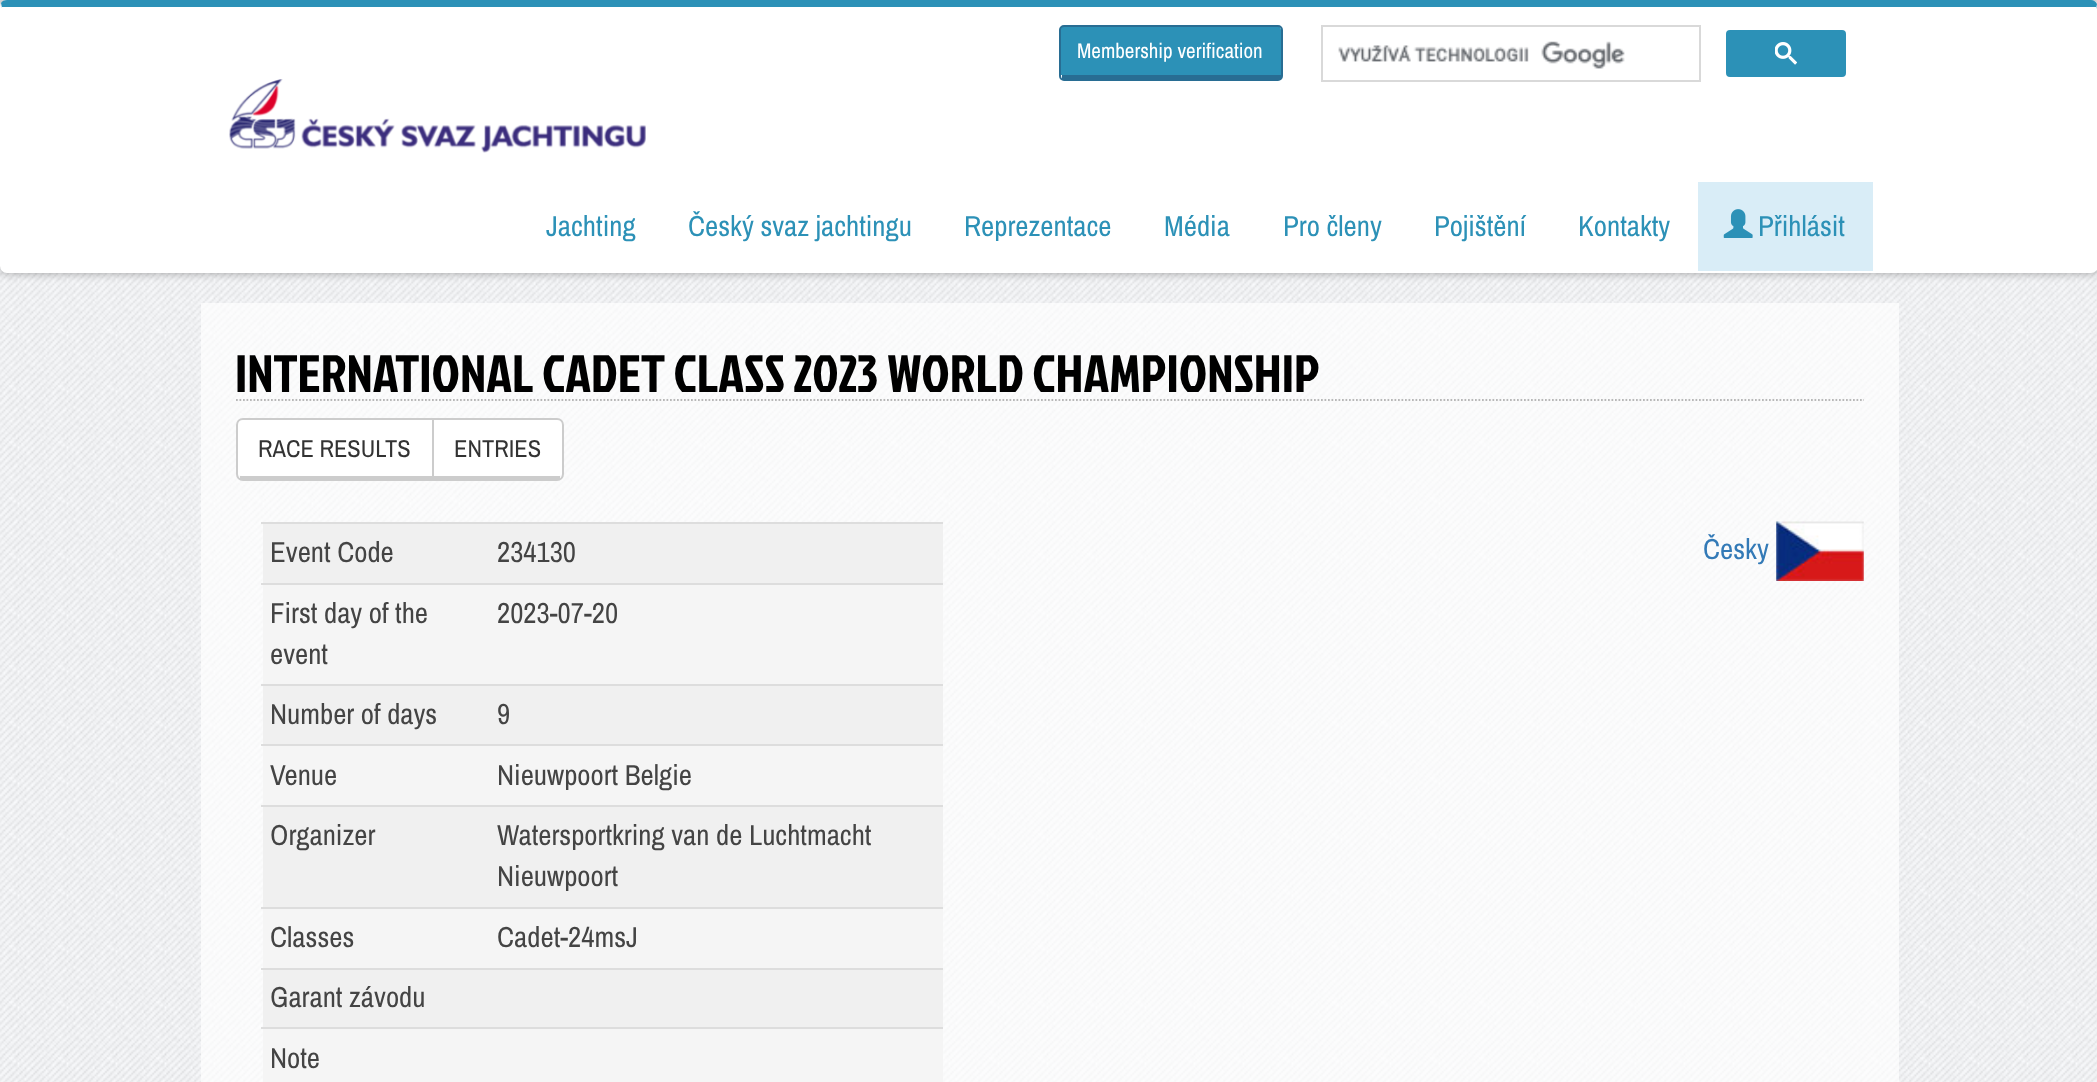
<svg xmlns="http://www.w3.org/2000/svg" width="2097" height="1082">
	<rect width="100%" height="100%" fill="#FFFFFF" />
	<image x="0" y="0" width="2097" height="1082" href="assets/img1.png" />
	<rect x="0" y="0" width="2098" height="273" rx="7" fill="#000000" fill-opacity="0.35" filter="blur(5px)" />
	<rect x="0" y="0" width="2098" height="273" rx="7" fill="#FFFFFF" />
	<path d="M7 0C4 0 2 1 1 3L2 8V7H2096V9L2097 4C2096 2 2094 0 2091 0Z" fill="#2C91B7" />
	<image x="229" y="79" width="417" height="74" href="assets/img2.png" />
	<path d="M1064 26H1278C1279 26 1281 28 1281 30V75H1060V30C1060 28 1062 26 1064 26Z" fill="#2C91B7" />
	<rect x="1060" y="26" width="222" height="54" rx="4" fill="none" stroke="#286D93" stroke-width="2" />
	<rect x="1062" y="75" width="219" height="4" fill="#286D93" />
	<text x="1077" y="58" font-family="Archivo Narrow" font-size="21" fill="#FFFFFF">Membership verification</text>
	<rect x="1322" y="26" width="378" height="55" fill="none" stroke="#D9D9D9" stroke-width="2" />
	<image x="1338" y="41" width="287" height="28" href="assets/img3.png" />
	<rect x="1727" y="31" width="118" height="45" rx="3" fill="#2C91B7" stroke="#2C91B7" stroke-width="2" />
	<image x="1775" y="42" width="22" height="23" href="assets/img4.png" />
	<g font-family="Archivo Narrow" font-size="28.9" fill="#2C91B7">
		<text x="546" y="236">Jachting</text>
		<text x="688" y="236">Český svaz jachtingu</text>
		<text x="964" y="236">Reprezentace</text>
		<text x="1164" y="236">Média</text>
		<text x="1283" y="236">Pro členy</text>
		<text x="1434" y="236">Pojištění</text>
		<text x="1578" y="236">Kontakty</text>
	</g>
	<rect x="1698" y="182" width="175" height="89" fill="#D9EDF7" />
	<image x="1723" y="209" width="30" height="29" href="assets/img5.png" />
	<text x="1758" y="236" font-family="Archivo Narrow" font-size="28.9" fill="#2C91B7">Přihlásit</text>
	<rect x="201" y="303" width="1698" height="779" fill="#FFFFFF" fill-opacity="0.7" />
	<path d="M236 400H1864" fill="none" stroke="#B8B8B8" stroke-width="1.8" stroke-dasharray="1.75 1.75" />
	<text x="235" y="392" font-family="Jockey One" font-size="52.5" fill="#000000">INTERNATIONAL CADET CLASS 2023 WORLD CHAMPIONSHIP</text>
	<path d="M243 420H432V476H243C240 476 238 475 238 474V425C238 422 240 420 243 420Z" fill="#FFFFFF" />
	<path d="M243 419H433V480H243C239.5 480 237 477.5 237 474V425C237 421.5 239.5 419 243 419Z" fill="none" stroke="#CCCCCC" stroke-width="2" />
	<rect x="240" y="476" width="194" height="3" fill="#CCCCCC" />
	<text x="258" y="457" font-family="Archivo Narrow" font-size="24.5" fill="#333333">RACE RESULTS</text>
	<path d="M434 420H556C559 420 562 422 562 425V474C562 475 559 476 556 476H434Z" fill="#FFFFFF" />
	<path d="M433 419H557C560.5 419 563 421.5 563 425V474C563 477.5 560.5 480 557 480H433Z" fill="none" stroke="#CCCCCC" stroke-width="2" />
	<rect x="432" y="476" width="128" height="3" fill="#CCCCCC" />
	<text x="454" y="457" font-family="Archivo Narrow" font-size="24.5" fill="#333333">ENTRIES</text>
	<rect x="263" y="524" width="680" height="59" fill="#F0F0F0" />
	<text x="270" y="562" font-family="Archivo Narrow" font-size="28.9" fill="#444444">Event Code</text>
	<rect x="261" y="522" width="682" height="2" fill="#DDDDDD" />
	<text x="497" y="562" font-family="Archivo Narrow" font-size="28.9" fill="#444444">234130</text>
	<rect x="263" y="585" width="680" height="99" fill="#F5F5F5" />
	<g font-family="Archivo Narrow" font-size="28.9" fill="#444444">
		<text x="270" y="623">First day of the</text>
		<text x="270" y="664">event</text>
	</g>
	<rect x="261" y="583" width="682" height="2" fill="#DDDDDD" />
	<text x="497" y="623" font-family="Archivo Narrow" font-size="28.9" fill="#444444">2023-07-20</text>
	<rect x="263" y="686" width="680" height="58" fill="#F0F0F0" />
	<text x="270" y="724" font-family="Archivo Narrow" font-size="28.9" fill="#444444">Number of days</text>
	<rect x="261" y="684" width="682" height="2" fill="#DDDDDD" />
	<text x="497" y="724" font-family="Archivo Narrow" font-size="28.9" fill="#444444">9</text>
	<rect x="263" y="746" width="680" height="59" fill="#F5F5F5" />
	<text x="270" y="785" font-family="Archivo Narrow" font-size="28.9" fill="#444444">Venue</text>
	<rect x="261" y="744" width="682" height="2" fill="#DDDDDD" />
	<text x="497" y="785" font-family="Archivo Narrow" font-size="28.9" fill="#444444">Nieuwpoort Belgie</text>
	<rect x="263" y="807" width="680" height="100" fill="#F0F0F0" />
	<text x="270" y="845" font-family="Archivo Narrow" font-size="28.9" fill="#444444">Organizer</text>
	<rect x="261" y="805" width="682" height="2" fill="#DDDDDD" />
	<g font-family="Archivo Narrow" font-size="28.9" fill="#444444">
		<text x="497" y="845">Watersportkring van de Luchtmacht</text>
		<text x="497" y="886">Nieuwpoort</text>
	</g>
	<rect x="263" y="909" width="680" height="59" fill="#F5F5F5" />
	<text x="270" y="947" font-family="Archivo Narrow" font-size="28.9" fill="#444444">Classes</text>
	<rect x="261" y="907" width="682" height="2" fill="#DDDDDD" />
	<text x="497" y="947" font-family="Archivo Narrow" font-size="28.9" fill="#444444">Cadet-24msJ</text>
	<rect x="263" y="970" width="680" height="57" fill="#F0F0F0" />
	<rect x="261" y="968" width="682" height="2" fill="#DDDDDD" />
	<text x="270" y="1007" font-family="Archivo Narrow" font-size="28.9" fill="#444444">Garant závodu</text>
	<rect x="263" y="1029" width="680" height="53" fill="#F5F5F5" />
	<rect x="261" y="1027" width="682" height="2" fill="#DDDDDD" />
	<text x="270" y="1068" font-family="Archivo Narrow" font-size="28.9" fill="#444444">Note</text>
	<text x="1703" y="559" font-family="Archivo Narrow" font-size="28.9" fill="#337AB7">Česky</text>
	<image x="1776" y="521" width="88" height="60" href="assets/img6.png" />
</svg>
